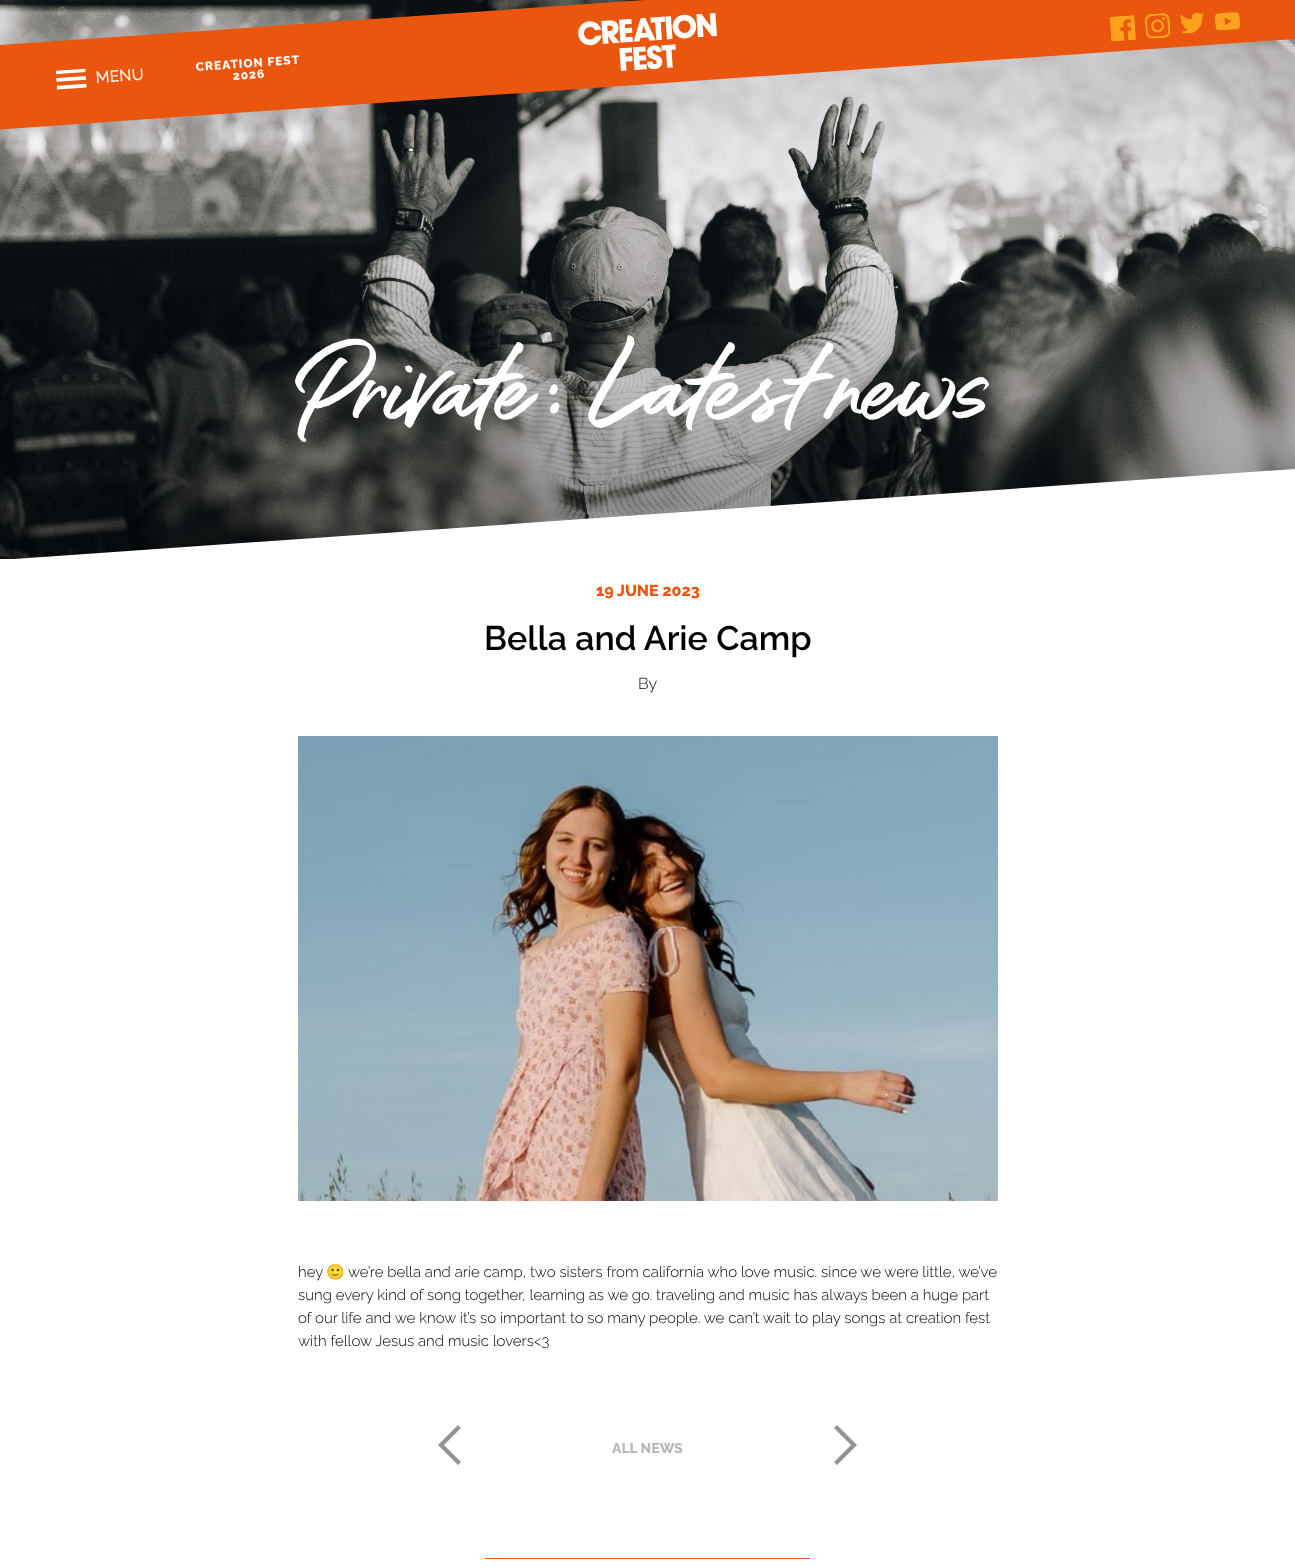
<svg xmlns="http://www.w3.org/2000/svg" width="1295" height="1568">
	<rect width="100%" height="100%" fill="#FFFFFF" />
	<image x="0" y="0" width="1295" height="559" href="assets/img7.png" />
	<path d="M-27 47L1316-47L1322 37L-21 131Z" fill="#EA560D" />
	<image x="55" y="68" width="32" height="22" href="assets/img1.png" />
	<text x="96" y="83" transform="rotate(-4 96 83)" font-family="Raleway" font-size="16" font-weight="500" fill="#FFFFFF">MENU</text>
	<g font-family="Raleway" font-size="12" font-weight="800" letter-spacing="1" fill="#FFFFFF">
		<text x="196" y="71" transform="rotate(-4 196 71)">CREATION FEST</text>
		<text x="233" y="80" transform="rotate(-4 233 80)">2026</text>
	</g>
	<image x="578" y="13" width="139" height="58" href="assets/img2.png" />
	<image x="1109" y="15" width="27" height="27" href="assets/img3.png" />
	<image x="1145" y="13" width="26" height="26" href="assets/img4.png" />
	<image x="1180" y="12" width="24" height="22" href="assets/img5.png" />
	<image x="1215" y="12" width="25" height="19" href="assets/img6.png" />
	<text x="308" y="415" font-family="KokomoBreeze" font-size="150" fill="#FFFFFF">Private: Latest news</text>
	<path d="M1295 469L0 560H1295Z" fill="#FFFFFF" fill-rule="evenodd" />
	<text x="596" y="596" font-family="Raleway" font-size="16" font-weight="800" fill="#EA560D">19 JUNE 2023</text>
	<text x="484" y="650" font-family="Raleway" font-size="34" font-weight="600" fill="#000000">Bella and Arie Camp</text>
	<text x="638" y="689" font-family="Raleway" font-size="16" font-weight="300" fill="#000000">By</text>
	<image x="298" y="736" width="700" height="465" href="assets/img8.png" />
	<text x="298" y="1277" font-family="Raleway" font-size="15" font-weight="300" fill="#000000">hey</text>
	<text x="326" y="1277" font-family="Noto Color Emoji" font-size="15" fill="#000000">🙂</text>
	<g font-family="Raleway" font-size="15" font-weight="300" fill="#000000">
		<text x="348" y="1277">we’re bella and arie camp, two sisters from california who love music. since we were little, we’ve</text>
		<text x="298" y="1300">sung every kind of song together, learning as we go. traveling and music has always been a huge part</text>
		<text x="298" y="1323">of our life and we know it’s so important to so many people. we can’t wait to play songs at creation fest</text>
		<text x="298" y="1346">with fellow Jesus and music lovers&lt;3</text>
	</g>
	<path d="M438 1445L458 1465L461 1462L444 1445L461 1428L458 1425Z" fill="#949494" />
	<text x="612" y="1453" font-family="Raleway" font-size="14" font-weight="800" fill="#B9B9B9">ALL NEWS</text>
	<path d="M857 1445L837 1425L834 1428L851 1445L834 1462L837 1465Z" fill="#949494" />
	<rect x="485" y="1558" width="325" height="1" fill="#EA560D" />
</svg>
